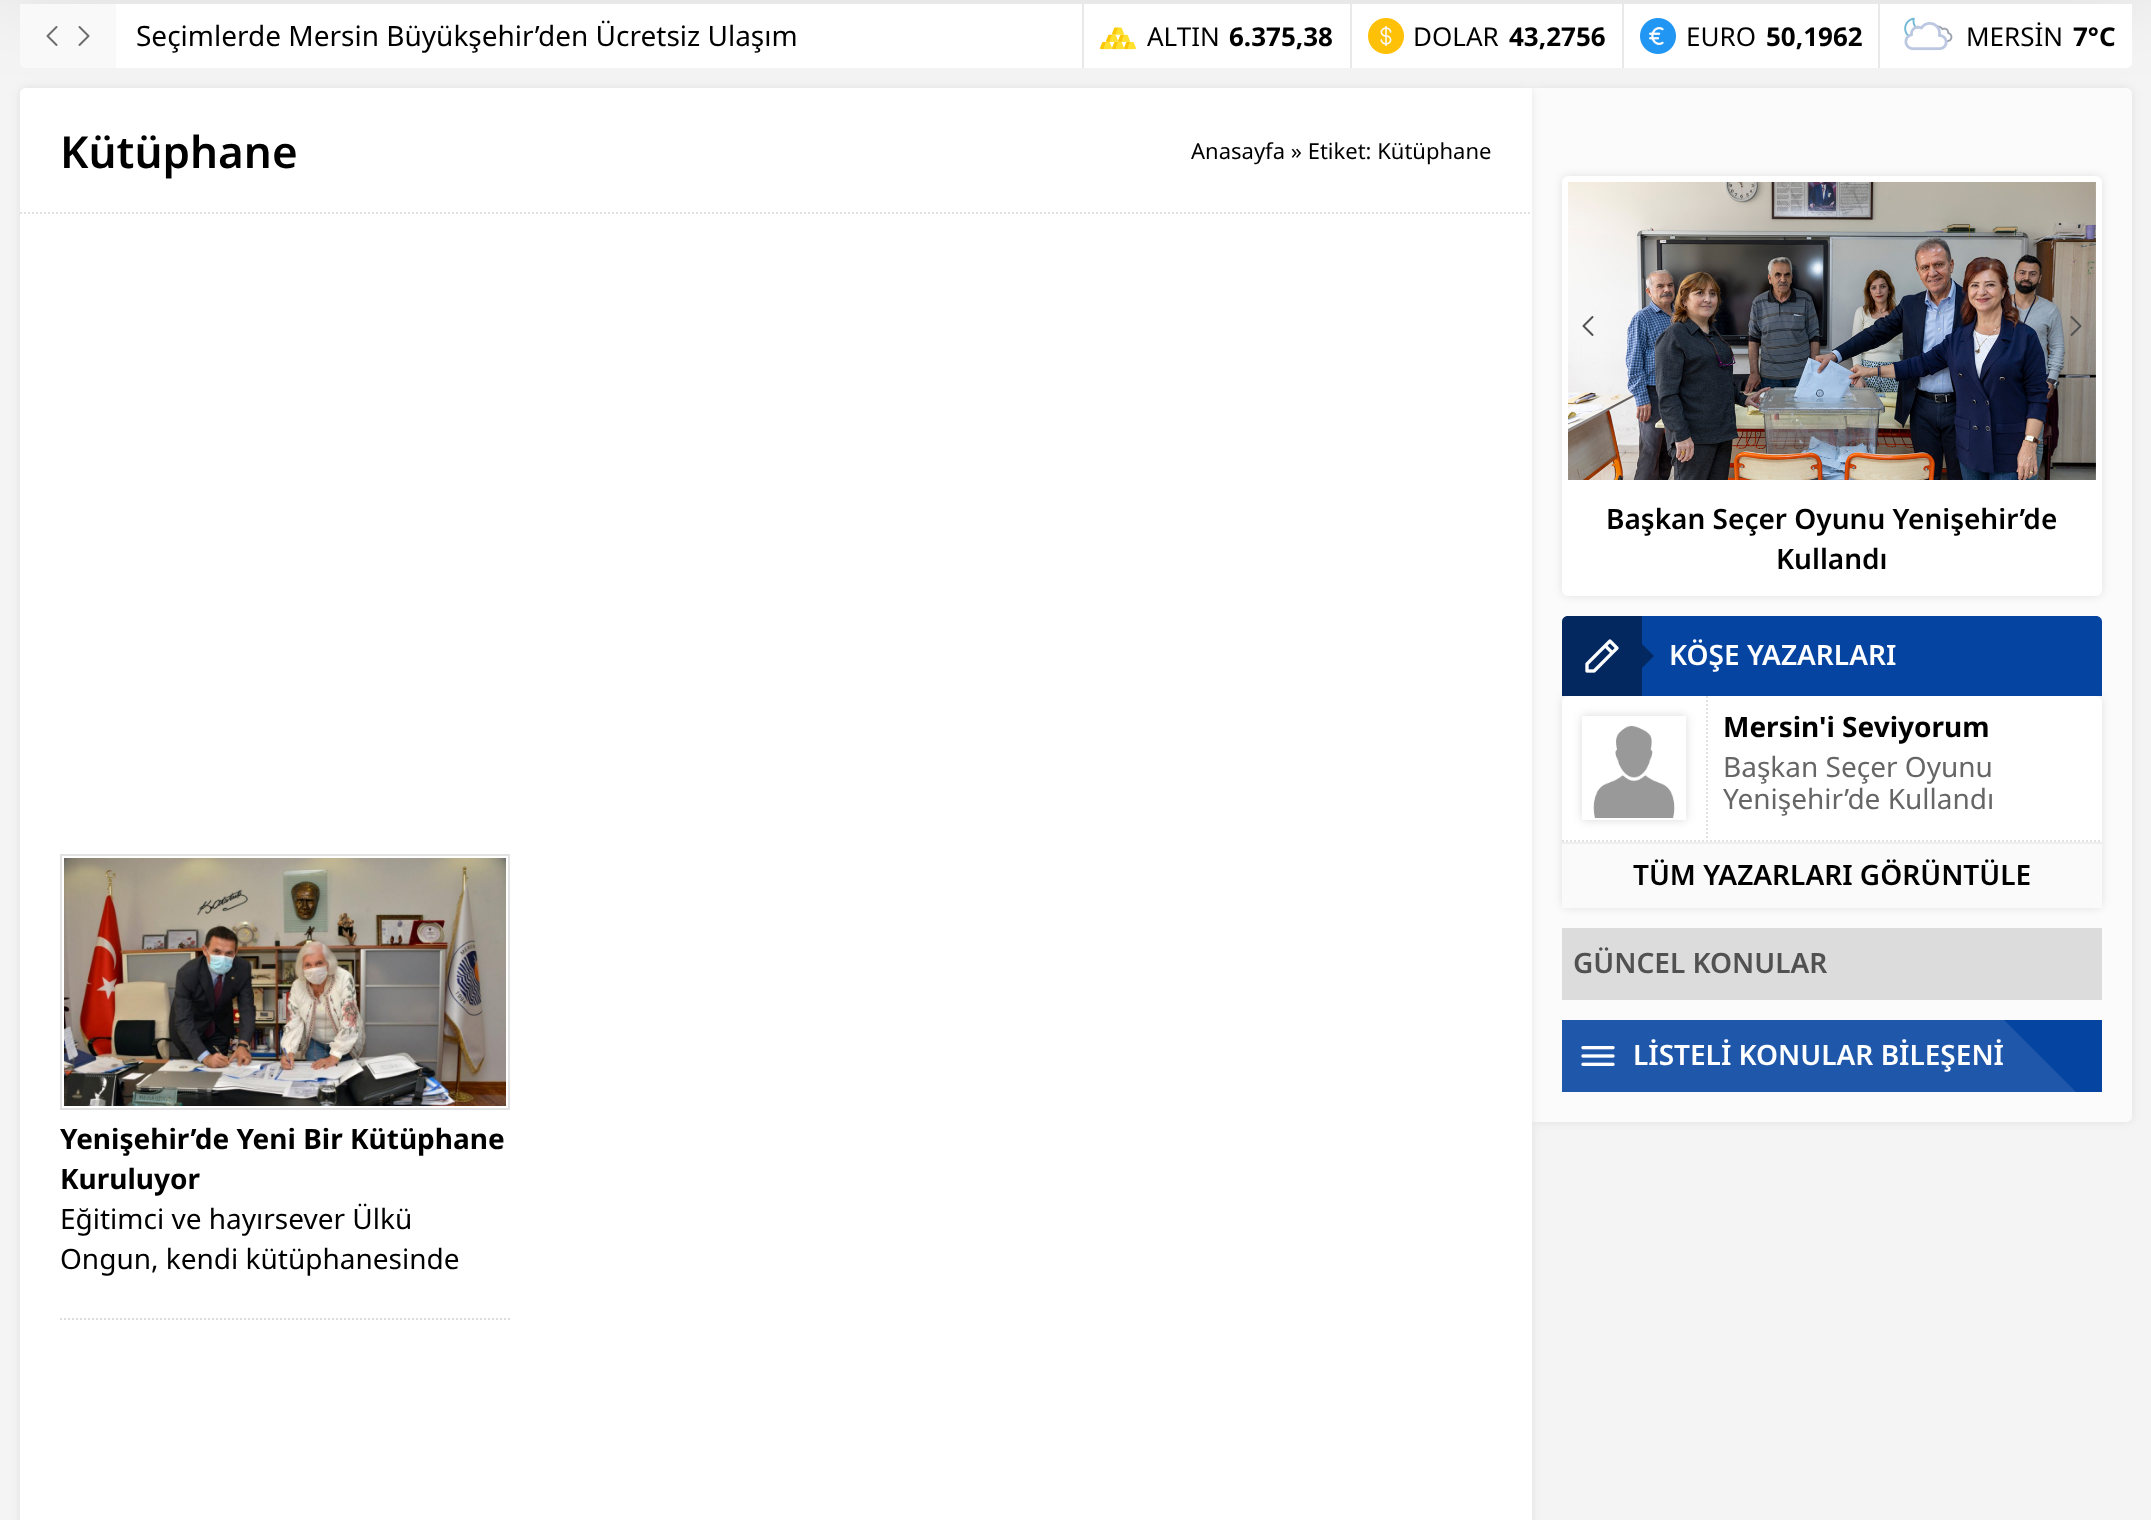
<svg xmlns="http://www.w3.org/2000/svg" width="2151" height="1520">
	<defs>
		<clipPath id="clip1"><path d="M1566 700H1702V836H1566ZM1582 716H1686V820H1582Z" clip-rule="evenodd" /></clipPath>
	</defs>
	<rect width="100%" height="100%" fill="#F4F4F4" />
	<rect x="0" y="-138" width="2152" height="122" fill="#000000" fill-opacity="0.13" filter="blur(50px)" />
	<path d="M20 4H2132V62C2132 65.5 2129.5 68 2126 68H26C22.5 68 20 65.5 20 62Z" fill="#FFFFFF" />
	<path d="M20 4H116V68H26C22.5 68 20 65.5 20 62Z" fill="#F9F9F9" />
	<image x="46" y="26" width="12" height="20" href="assets/img1.png" />
	<image x="78" y="26" width="12" height="20" href="assets/img2.png" />
	<text x="136" y="46" font-family="Noto Sans" font-size="28" fill="#000000">Seçimlerde Mersin Büyükşehir’den Ücretsiz Ulaşım</text>
	<rect x="1082" y="4" width="2" height="64" fill="#E9E9E9" />
	<image x="1100" y="27" width="36" height="23" href="assets/img3.png" />
	<text x="1147" y="46" font-family="Noto Sans" font-size="26" fill="#000000">ALTIN</text>
	<text x="1229" y="46" font-family="Noto Sans" font-size="26" font-weight="700" fill="#000000">6.375,38</text>
	<rect x="1350" y="4" width="2" height="64" fill="#E9E9E9" />
	<image x="1368" y="18" width="36" height="36" href="assets/img4.png" />
	<text x="1413" y="46" font-family="Noto Sans" font-size="26" fill="#000000">DOLAR</text>
	<text x="1509" y="46" font-family="Noto Sans" font-size="26" font-weight="700" fill="#000000">43,2756</text>
	<rect x="1622" y="4" width="2" height="64" fill="#E9E9E9" />
	<image x="1640" y="18" width="36" height="36" href="assets/img5.png" />
	<text x="1686" y="46" font-family="Noto Sans" font-size="26" fill="#000000">EURO</text>
	<text x="1766" y="46" font-family="Noto Sans" font-size="26" font-weight="700" fill="#000000">50,1962</text>
	<rect x="1878" y="4" width="2" height="64" fill="#E9E9E9" />
	<image x="1904" y="17" width="49" height="34" href="assets/img6.png" />
	<text x="1966" y="46" font-family="Noto Sans" font-size="26" fill="#000000">MERSİN</text>
	<text x="2073" y="46" font-family="Noto Sans" font-size="26" font-weight="700" fill="#000000">7°C</text>
	<rect x="1532" y="88" width="600" height="1034" rx="6" fill="#000000" fill-opacity="0.08" filter="blur(5px)" />
	<path d="M1532 88H2126C2129.5 88 2132 90.5 2132 94V1116C2132 1119.5 2129.5 1122 2126 1122H1532Z" fill="#FBFBFB" />
	<rect x="20" y="88" width="1512" height="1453" rx="6" fill="#000000" fill-opacity="0.08" filter="blur(5px)" />
	<path d="M26 88H1532V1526H26C22.5 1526 20 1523.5 20 1520V94C20 90.5 22.5 88 26 88Z" fill="#FFFFFF" />
	<path d="M20 213H1532" fill="none" stroke="#E2E2E2" stroke-width="2" stroke-dasharray="2 2" />
	<text x="60" y="168" font-family="Noto Sans" font-size="44" font-weight="600" fill="#000000">Kütüphane</text>
	<text x="1191" y="159" font-family="Noto Sans" font-size="22" fill="#000000">Anasayfa » Etiket: Kütüphane</text>
	<path d="M60 1319H510" fill="none" stroke="#DDDDDD" stroke-width="2" stroke-dasharray="2 2" />
	<rect x="61" y="855" width="448" height="254" fill="none" stroke="#E2E2E2" stroke-width="2" />
	<image x="64" y="858" width="442" height="248" href="assets/img7.png" />
	<g font-family="Noto Sans" font-size="28" font-weight="700" fill="#000000">
		<text x="60" y="1149">Yenişehir’de Yeni Bir Kütüphane</text>
		<text x="60" y="1189">Kuruluyor</text>
	</g>
	<g font-family="Noto Sans" font-size="28" fill="#000000">
		<text x="60" y="1229">Eğitimci ve hayırsever Ülkü</text>
		<text x="60" y="1269">Ongun, kendi kütüphanesinde</text>
	</g>
	<rect x="1562" y="176" width="540" height="420" rx="6" fill="#000000" fill-opacity="0.1" filter="blur(5px)" />
	<rect x="1562" y="176" width="540" height="420" rx="6" fill="#FFFFFF" />
	<image x="1568" y="182" width="528" height="298" href="assets/img10.png" />
	<image x="1582" y="316" width="12" height="20" href="assets/img8.png" />
	<image x="2070" y="316" width="12" height="20" href="assets/img9.png" />
	<g font-family="Noto Sans" font-size="28" font-weight="600" fill="#000000">
		<text x="1606" y="529">Başkan Seçer Oyunu Yenişehir’de</text>
		<text x="1776" y="569">Kullandı</text>
	</g>
	<rect x="1562" y="696" width="540" height="212" rx="6" fill="#000000" fill-opacity="0.1" filter="blur(5px)" />
	<path d="M1568 616H2096C2099.5 616 2102 618.5 2102 622V696H1562V622C1562 618.5 1564.5 616 1568 616Z" fill="#0644A1" />
	<path d="M1568 616H1642V696H1562V622C1562 618.5 1564.5 616 1568 616Z" fill="#000000" fill-opacity="0.4" />
	<image x="1585" y="639" width="34" height="34" href="assets/img11.png" />
	<path d="M1642 668V644L1654 656Z" fill="#042961" />
	<text x="1669" y="665" font-family="Noto Sans" font-size="28" font-weight="600" fill="#FFFFFF">KÖŞE YAZARLARI</text>
	<rect x="1562" y="696" width="540" height="212" rx="6" fill="#FFFFFF" />
	<path d="M1562 841H2102" fill="none" stroke="#E2E2E2" stroke-width="2" stroke-dasharray="2 2" />
	<path d="M1707 696V840" fill="none" stroke="#E2E2E2" stroke-width="2" stroke-dasharray="2 2" />
	<g clip-path="url(#clip1)">
		<rect x="1582" y="716" width="104" height="104" fill="#000000" fill-opacity="0.15" filter="blur(5px)" />
	</g>
	<image x="1593" y="725" width="82" height="93" href="assets/img12.png" />
	<text x="1723" y="737" font-family="Noto Sans" font-size="28" font-weight="700" fill="#000000">Mersin'i Seviyorum</text>
	<g font-family="Noto Sans" font-size="28" fill="#666666">
		<text x="1723" y="777">Başkan Seçer Oyunu</text>
		<text x="1723" y="809">Yenişehir’de Kullandı</text>
	</g>
	<rect x="1562" y="844" width="540" height="64" fill="#FAFAFA" />
	<rect x="1562" y="842" width="540" height="2" fill="#EEEEEE" />
	<text x="1633" y="885" font-family="Noto Sans" font-size="28" font-weight="600" fill="#000000">TÜM YAZARLARI GÖRÜNTÜLE</text>
	<rect x="1562" y="928" width="540" height="72" fill="#DCDCDC" />
	<text x="1573" y="973" font-family="Noto Sans" font-size="28" font-weight="600" fill="#515151">GÜNCEL KONULAR</text>
	<rect x="2004" y="1020" width="98" height="72" fill="#0644A1" />
	<rect x="1562" y="1020" width="442" height="72" fill="#1F57AA" />
	<image x="1581" y="1046" width="34" height="20" href="assets/img13.png" />
	<path d="M2076 1092H2004V1020Z" fill="#1F57AA" />
	<text x="1633" y="1065" font-family="Noto Sans" font-size="28" font-weight="600" fill="#FFFFFF">LİSTELİ KONULAR BİLEŞENİ</text>
</svg>
